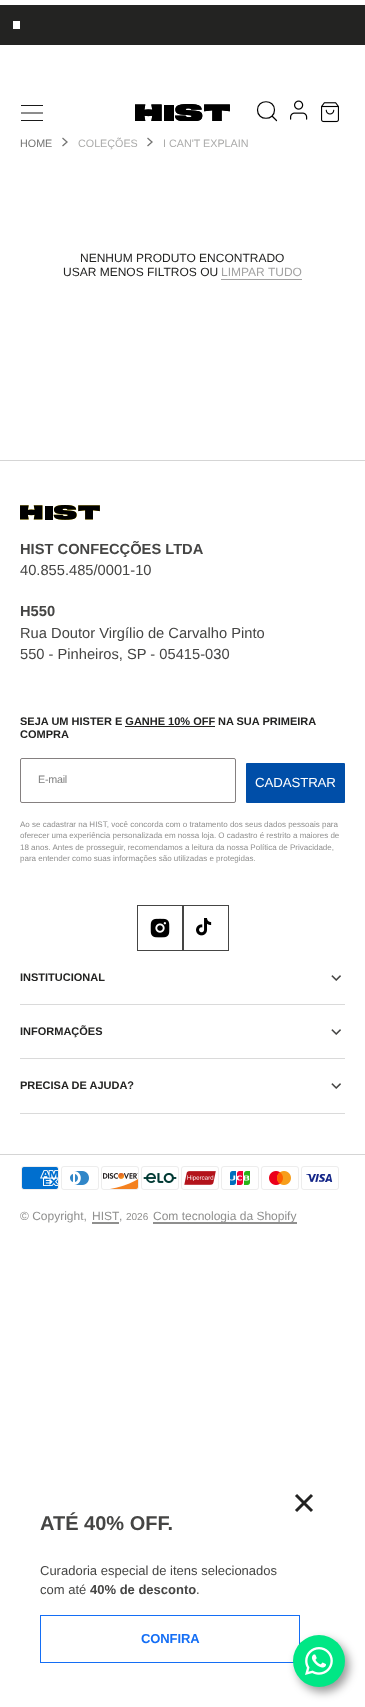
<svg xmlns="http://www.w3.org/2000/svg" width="365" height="1707">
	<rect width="100%" height="100%" fill="#FFFFFF" />
	<rect x="0" y="5" width="365" height="40" fill="#232322" />
	<rect x="13" y="21" width="7" height="8" fill="#FFFFFF" />
	<path d="M21.5 113H42.5" fill="none" stroke="#000000" stroke-width="0.9" stroke-linecap="square" stroke-linejoin="round" />
	<rect x="21" y="105" width="22" height="1" fill="#1A1A1A" />
	<rect x="21" y="120" width="22" height="1" fill="#1A1A1A" />
	<image x="135" y="104" width="95" height="17" href="assets/img1.png" />
	<path d="M276.5 120.5L272 116M274.5 110C274.5 121 257.5 121 257.5 110C257.5 99 274.5 99 274.5 110Z" fill="none" stroke="#000000" stroke-width="1.2" stroke-linecap="round" stroke-linejoin="round" />
	<image x="290" y="100" width="18" height="20" href="assets/img2.png" />
	<image x="321" y="102" width="18" height="21" href="assets/img3.png" />
	<text x="20" y="147" font-family="Liberation Sans" font-size="10.75" fill="#737372">HOME</text>
	<path d="M63 138.5L67 142L63 145.5" fill="none" stroke="#737372" stroke-width="1.3" stroke-linecap="square" />
	<text x="78" y="147" font-family="Liberation Sans" font-size="10.75" fill="#ABABAA">COLEÇÕES</text>
	<path d="M148 138.5L152 142L148 145.5" fill="none" stroke="#737372" stroke-width="1.3" stroke-linecap="square" />
	<text x="163" y="147" font-family="Liberation Sans" font-size="10.75" fill="#ABABAA">I CAN'T EXPLAIN</text>
	<g font-family="Liberation Sans" font-size="12" fill="#232322">
		<text x="80" y="262">NENHUM PRODUTO ENCONTRADO</text>
		<text x="63" y="276">USAR MENOS FILTROS OU</text>
	</g>
	<text x="221" y="276" font-family="Liberation Sans" font-size="12" fill="#A2A2A2">LIMPAR TUDO</text>
	<rect x="221" y="279" width="81" height="1" fill="#A2A2A2" />
	<rect x="0" y="460" width="365" height="1" fill="#D5D5D5" />
	<rect x="0" y="1154" width="365" height="1" fill="#D5D5D5" />
	<image x="20" y="505" width="80" height="15" href="assets/img4.png" />
	<text x="20" y="554" font-family="Liberation Sans" font-size="14.7" font-weight="700" fill="#454544">HIST CONFECÇÕES LTDA</text>
	<text x="20" y="575" font-family="Liberation Sans" font-size="14.7" fill="#454544">40.855.485/0001-10</text>
	<text x="20" y="616" font-family="Liberation Sans" font-size="14.7" font-weight="700" fill="#454544">H550</text>
	<g font-family="Liberation Sans" font-size="14.7" fill="#454544">
		<text x="20" y="638">Rua Doutor Virgílio de Carvalho Pinto</text>
		<text x="20" y="659">550 - Pinheiros, SP - 05415-030</text>
	</g>
	<g font-family="Liberation Sans" font-size="11" font-weight="700" fill="#232322">
		<text x="20" y="725">SEJA UM HISTER E GANHE 10% OFF</text>
		<text x="218" y="725">NA SUA PRIMEIRA</text>
	</g>
	<rect x="125" y="726" width="90" height="1" fill="#232322" />
	<text x="20" y="738" font-family="Liberation Sans" font-size="11" font-weight="700" fill="#232322">COMPRA</text>
	<rect x="20.5" y="758.5" width="215" height="44" rx="1.5" fill="none" stroke="#858080" />
	<text x="38" y="783" font-family="Liberation Sans" font-size="10.75" letter-spacing="-0.25" fill="#808080">E-mail</text>
	<rect x="246" y="763" width="99" height="40" rx="1" fill="#004EA8" />
	<text x="255" y="787" font-family="Liberation Sans" font-size="13.25" letter-spacing="-0.1" fill="#FFFFFF">CADASTRAR</text>
	<g font-family="Liberation Sans" font-size="8" fill="#8F8F8E">
		<text x="20" y="827">Ao se cadastrar na HIST, você concorda com o tratamento dos seus dados pessoais para</text>
		<text x="20" y="838">oferecer uma experiência personalizada em nossa loja. O cadastro é restrito a maiores de</text>
		<text x="20" y="850">18 anos. Antes de prosseguir, recomendamos a leitura da nossa Política de Privacidade,</text>
		<text x="20" y="861">para entender como suas informações são utilizadas e protegidas.</text>
	</g>
	<rect x="137.5" y="905.5" width="45" height="45" fill="none" stroke="#454544" />
	<image x="150" y="918" width="20" height="20" href="assets/img5.png" />
	<rect x="183.5" y="905.5" width="45" height="45" fill="none" stroke="#454544" />
	<image x="196" y="918" width="16" height="18" href="assets/img6.png" />
	<rect x="20" y="1004" width="325" height="1" fill="#DADADA" />
	<text x="20" y="981" font-family="Liberation Sans" font-size="11" font-weight="700" fill="#232322">INSTITUCIONAL</text>
	<image x="331" y="975" width="10" height="6" href="assets/img7.png" />
	<rect x="20" y="1058" width="325" height="1" fill="#DADADA" />
	<text x="20" y="1035" font-family="Liberation Sans" font-size="11" font-weight="700" fill="#232322">INFORMAÇÕES</text>
	<image x="331" y="1029" width="10" height="6" href="assets/img7.png" />
	<rect x="20" y="1113" width="325" height="1" fill="#DADADA" />
	<text x="20" y="1089" font-family="Liberation Sans" font-size="11" font-weight="700" fill="#232322">PRECISA DE AJUDA?</text>
	<image x="331" y="1083" width="10" height="6" href="assets/img7.png" />
	<image x="21" y="1166" width="38" height="24" href="assets/img8.png" />
	<image x="61" y="1166" width="38" height="24" href="assets/img9.png" />
	<image x="101" y="1166" width="38" height="24" href="assets/img10.png" />
	<image x="141" y="1166" width="38" height="24" href="assets/img11.png" />
	<image x="181" y="1166" width="38" height="24" href="assets/img12.png" />
	<image x="221" y="1166" width="38" height="24" href="assets/img13.png" />
	<image x="261" y="1166" width="38" height="24" href="assets/img14.png" />
	<image x="301" y="1166" width="38" height="24" href="assets/img15.png" />
	<g font-family="Liberation Sans" font-size="12" fill="#8F8F8E">
		<text x="20" y="1220">© Copyright,</text>
		<text x="92" y="1220">HIST</text>
	</g>
	<rect x="92" y="1222" width="27" height="2" fill="#8F8F8E" />
	<text x="119" y="1220" font-family="Liberation Sans" font-size="12" fill="#8F8F8E">,</text>
	<text x="126" y="1220" font-family="Liberation Sans" font-size="10" fill="#8F8F8E">2026</text>
	<text x="153" y="1220" font-family="Liberation Sans" font-size="12" fill="#8F8F8E">Com tecnologia da Shopify</text>
	<rect x="153" y="1222" width="144" height="2" fill="#8F8F8E" />
	<path d="M296 1495L312 1511M312 1495L296 1511" fill="none" stroke="#232322" stroke-width="3" />
	<text x="40" y="1530" font-family="Liberation Sans" font-size="20" font-weight="700" fill="#454544">ATÉ 40% OFF.</text>
	<g font-family="Liberation Sans" font-size="13" fill="#454544">
		<text x="40" y="1575">Curadoria especial de itens selecionados</text>
		<text x="40" y="1594">com até</text>
	</g>
	<text x="90" y="1594" font-family="Liberation Sans" font-size="13" font-weight="700" fill="#454544">40% de desconto</text>
	<text x="196" y="1594" font-family="Liberation Sans" font-size="13" fill="#454544">.</text>
	<rect x="40.5" y="1615.5" width="259" height="47" fill="none" stroke="#146EF5" />
	<text x="141" y="1643" font-family="Liberation Sans" font-size="13" font-weight="700" letter-spacing="-0.1" fill="#146EF5">CONFIRA</text>
	<rect x="297" y="1640" width="52" height="52" rx="26" fill="#000000" fill-opacity="0.4" filter="blur(5px)" />
	<circle cx="319" cy="1661" r="26" fill="#00E785" />
	<image x="305" y="1647" width="28" height="28" href="assets/img16.png" />
</svg>
